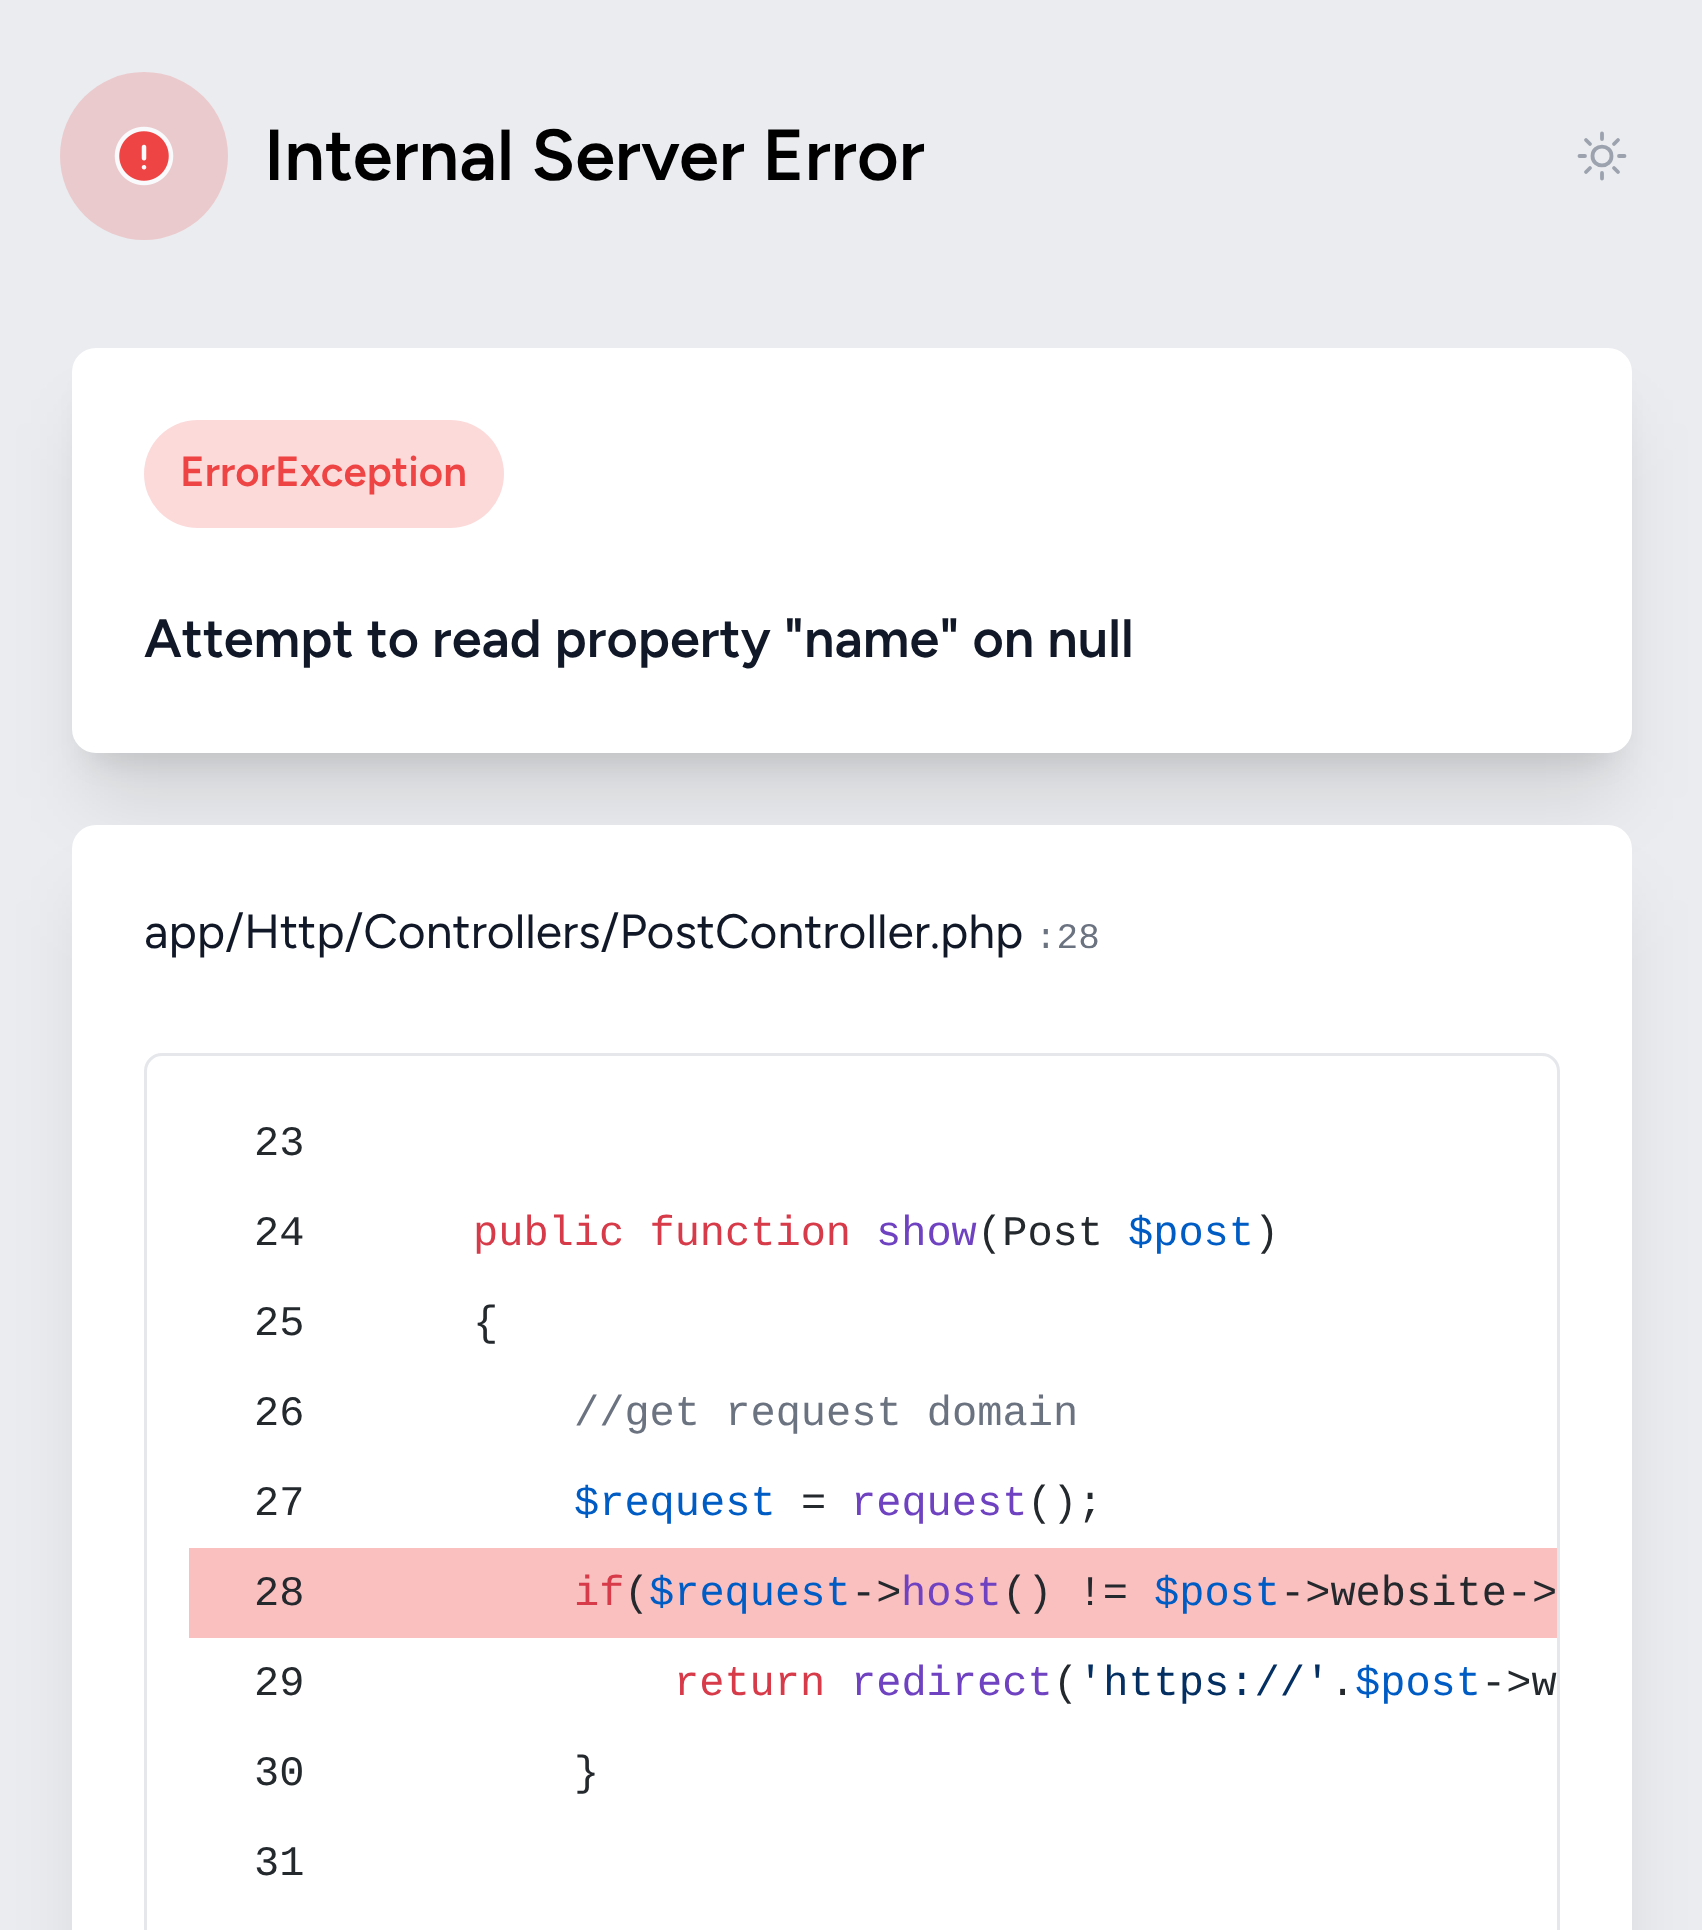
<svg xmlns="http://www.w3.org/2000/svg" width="1702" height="1930">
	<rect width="100%" height="100%" fill="#EAECEF" />
	<circle cx="144" cy="156" r="84" fill="#EBCACD" />
	<image x="114" y="126" width="60" height="60" href="assets/img1.png" />
	<text x="264" y="180" font-family="Figtree" font-size="72" font-weight="600" fill="#000000">Internal Server Error</text>
	<path d="M1602 133.5V139M1618 140L1614 144M1624.5 156H1619M1618 172L1614 168M1602 173V178.5M1590 168L1586 172M1585 156H1579.5M1590 144L1586 140M1611.5 156C1611.5 168.5 1592.5 168.5 1592.5 156C1592.5 143.5 1611.5 143.5 1611.5 156Z" fill="none" stroke="#9CA3AF" stroke-width="3.8" stroke-linecap="round" stroke-linejoin="round" />
	<rect x="90" y="390" width="1524" height="369" rx="6" fill="#000000" fill-opacity="0.1" filter="blur(15px)" />
	<rect x="87" y="423" width="1530" height="375" rx="9" fill="#000000" fill-opacity="0.1" filter="blur(37.5px)" />
	<rect x="72" y="348" width="1560" height="405" rx="24" fill="#FFFFFF" />
	<rect x="144" y="420" width="360" height="108" rx="54" fill="#FCDADA" />
	<text x="180" y="486" font-family="Figtree" font-size="42" font-weight="600" fill="#EF4444">ErrorException</text>
	<text x="144" y="657" font-family="Figtree" font-size="54" font-weight="600" fill="#111827">Attempt to read property "name" on null</text>
	<rect x="87" y="900" width="1530" height="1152" rx="9" fill="#000000" fill-opacity="0.1" filter="blur(37.5px)" />
	<rect x="72" y="825" width="1560" height="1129" rx="24" fill="#FFFFFF" />
	<text x="144" y="948" font-family="Figtree" font-size="48" font-weight="300" fill="#111827">app/Http/Controllers/PostController.php</text>
	<text x="1035" y="948" font-family="Liberation Mono" font-size="36" fill="#6B7280">:28</text>
	<rect x="145.5" y="1054.5" width="1413" height="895" rx="16.5" fill="none" stroke="#E5E7EB" stroke-width="3" />
	<g font-family="Liberation Mono" font-size="42" fill="#24292E">
		<text x="254" y="1155">23</text>
		<text x="254" y="1245">24</text>
	</g>
	<text x="473" y="1245" font-family="Liberation Mono" font-size="42" fill="#D73A49">public function</text>
	<text x="876" y="1245" font-family="Liberation Mono" font-size="42" fill="#6F42C1">show</text>
	<text x="977" y="1245" font-family="Liberation Mono" font-size="42" fill="#24292E">(Post</text>
	<text x="1128" y="1245" font-family="Liberation Mono" font-size="42" fill="#005CC5">$post</text>
	<g font-family="Liberation Mono" font-size="42" fill="#24292E">
		<text x="1254" y="1245">)</text>
		<text x="254" y="1335">25</text>
		<text x="473" y="1335">{</text>
		<text x="254" y="1425">26</text>
	</g>
	<text x="574" y="1425" font-family="Liberation Mono" font-size="42" fill="#6B7280">//get request domain</text>
	<text x="254" y="1515" font-family="Liberation Mono" font-size="42" fill="#24292E">27</text>
	<text x="574" y="1515" font-family="Liberation Mono" font-size="42" fill="#005CC5">$request</text>
	<text x="801" y="1515" font-family="Liberation Mono" font-size="42" fill="#24292E">=</text>
	<text x="851" y="1515" font-family="Liberation Mono" font-size="42" fill="#6F42C1">request</text>
	<text x="1027" y="1515" font-family="Liberation Mono" font-size="42" fill="#24292E">();</text>
	<rect x="189" y="1548" width="1368" height="90" fill="#FABFBF" />
	<text x="254" y="1605" font-family="Liberation Mono" font-size="42" fill="#24292E">28</text>
	<text x="574" y="1605" font-family="Liberation Mono" font-size="42" fill="#D73A49">if</text>
	<text x="624" y="1605" font-family="Liberation Mono" font-size="42" fill="#24292E">(</text>
	<text x="649" y="1605" font-family="Liberation Mono" font-size="42" fill="#005CC5">$request</text>
	<text x="851" y="1605" font-family="Liberation Mono" font-size="42" fill="#24292E">-&gt;</text>
	<text x="901" y="1605" font-family="Liberation Mono" font-size="42" fill="#6F42C1">host</text>
	<text x="1002" y="1605" font-family="Liberation Mono" font-size="42" fill="#24292E">() !=</text>
	<text x="1154" y="1605" font-family="Liberation Mono" font-size="42" fill="#005CC5">$post</text>
	<g font-family="Liberation Mono" font-size="42" fill="#24292E">
		<text x="1280" y="1605">-&gt;website-&gt;</text>
		<text x="254" y="1695">29</text>
	</g>
	<text x="674" y="1695" font-family="Liberation Mono" font-size="42" fill="#D73A49">return</text>
	<text x="851" y="1695" font-family="Liberation Mono" font-size="42" fill="#6F42C1">redirect</text>
	<text x="1053" y="1695" font-family="Liberation Mono" font-size="42" fill="#24292E">(</text>
	<text x="1078" y="1695" font-family="Liberation Mono" font-size="42" fill="#032F62">'https://'</text>
	<text x="1330" y="1695" font-family="Liberation Mono" font-size="42" fill="#24292E">.</text>
	<text x="1355" y="1695" font-family="Liberation Mono" font-size="42" fill="#005CC5">$post</text>
	<g font-family="Liberation Mono" font-size="42" fill="#24292E">
		<text x="1481" y="1695">-&gt;w</text>
		<text x="254" y="1785">30</text>
		<text x="574" y="1785">}</text>
		<text x="254" y="1875">31</text>
	</g>
</svg>
